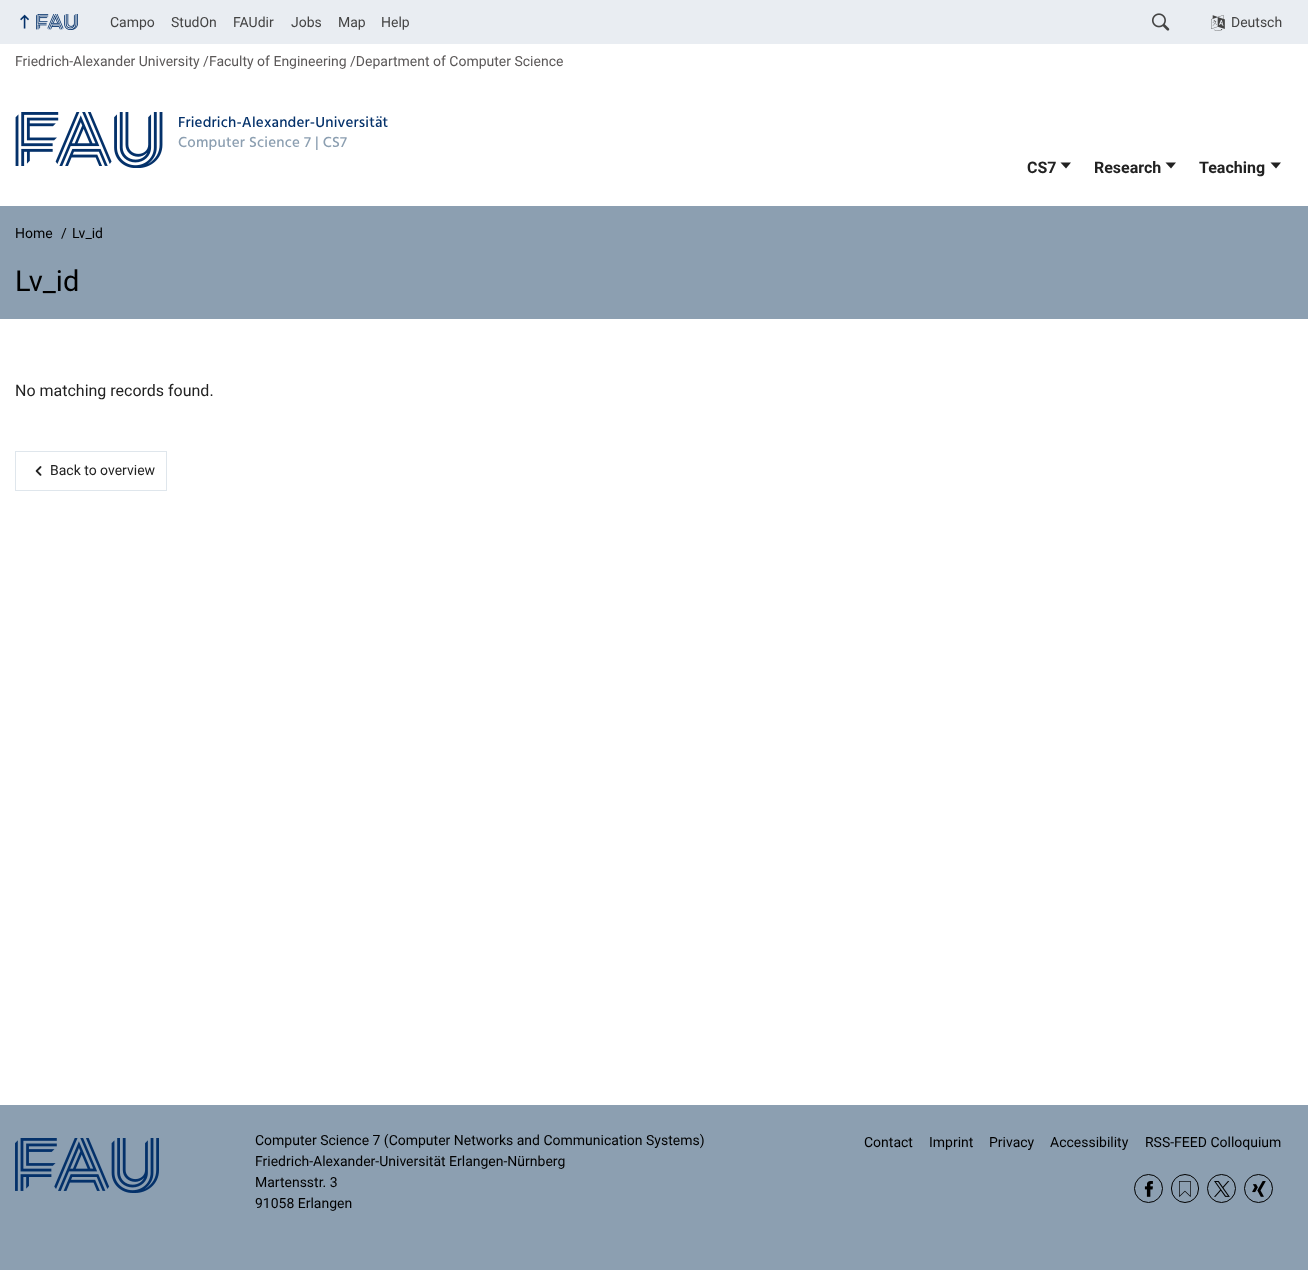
<svg xmlns="http://www.w3.org/2000/svg" width="1308" height="1270">
	<rect width="100%" height="100%" fill="#FFFFFF" />
	<rect x="0" y="0" width="1308" height="44" fill="#E9EDF2" />
	<image x="20" y="14" width="9" height="15" href="assets/img1.png" />
	<image x="36" y="14" width="42" height="16" href="assets/img2.png" />
	<g font-family="Roboto" font-size="14" fill="#444444">
		<text x="110" y="27">Campo</text>
		<text x="171" y="27">StudOn</text>
		<text x="233" y="27">FAUdir</text>
		<text x="291" y="27">Jobs</text>
		<text x="338" y="27">Map</text>
		<text x="381" y="27">Help</text>
	</g>
	<image x="1151" y="13" width="19" height="18" href="assets/img3.png" />
	<image x="1211" y="15" width="14" height="16" href="assets/img4.png" />
	<text x="1231" y="27" font-family="Roboto" font-size="14" fill="#444444">Deutsch</text>
	<text x="15" y="66" font-family="Roboto" font-size="14" fill="#5B5858">Friedrich-Alexander University /Faculty of Engineering /Department of Computer Science</text>
	<image x="15" y="112" width="148" height="56" href="assets/img5.png" />
	<text x="178" y="127" font-family="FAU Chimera" font-size="15" font-weight="500" letter-spacing="0.2" fill="#04316A">Friedrich-Alexander-Universität</text>
	<text x="178" y="147" font-family="FAU Chimera" font-size="15" font-weight="500" letter-spacing="0.2" fill="#8C9FB1">Computer Science 7 | CS7</text>
	<text x="1027" y="173" font-family="Roboto" font-size="16" font-weight="700" fill="#222222">CS7</text>
	<path d="M1060.5 162.5L1066 168.5L1071 162.5Z" fill="#222222" />
	<text x="1094" y="173" font-family="Roboto" font-size="16" font-weight="700" fill="#222222">Research</text>
	<path d="M1165.5 162.5L1171 168.5L1176 162.5Z" fill="#222222" />
	<text x="1199" y="173" font-family="Roboto" font-size="16" font-weight="700" fill="#222222">Teaching</text>
	<path d="M1270.5 162.5L1276 168.5L1281 162.5Z" fill="#222222" />
	<rect x="0" y="206" width="1308" height="113" fill="#8C9FB1" />
	<g font-family="Roboto" font-size="14" fill="#000000">
		<text x="15" y="238">Home</text>
		<text x="61" y="238">/</text>
		<text x="72" y="238">Lv_id</text>
	</g>
	<text x="15" y="291" font-family="Roboto" font-size="29" fill="#000000">Lv_id</text>
	<text x="15" y="396" font-family="Roboto" font-size="16" fill="#222222">No matching records found.</text>
	<rect x="15.5" y="451.5" width="151" height="39" fill="none" stroke="#DFE6EC" />
	<image x="35" y="466" width="7" height="10" href="assets/img6.png" />
	<text x="50" y="475" font-family="Roboto" font-size="14" fill="#222222">Back to overview</text>
	<rect x="0" y="1105" width="1308" height="165" fill="#8C9FB1" />
	<image x="15" y="1138" width="144" height="55" href="assets/img7.png" />
	<g font-family="Roboto" font-size="14" fill="#000000">
		<text x="255" y="1145">Computer Science 7 (Computer Networks and Communication Systems)</text>
		<text x="255" y="1166">Friedrich-Alexander-Universität Erlangen-Nürnberg</text>
		<text x="255" y="1187">Martensstr. 3</text>
		<text x="255" y="1208">91058 Erlangen</text>
		<text x="864" y="1147">Contact</text>
		<text x="929" y="1147">Imprint</text>
		<text x="989" y="1147">Privacy</text>
		<text x="1050" y="1147">Accessibility</text>
		<text x="1145" y="1147">RSS-FEED Colloquium</text>
	</g>
	<circle cx="1148.5" cy="1188.5" r="14" fill="none" stroke="#000000" />
	<image x="1144" y="1181" width="9" height="16" href="assets/img8.png" />
	<rect x="1171.5" y="1174.5" width="27" height="28" rx="13.5" fill="none" stroke="#000000" />
	<image x="1179" y="1181" width="12" height="16" href="assets/img9.png" />
	<circle cx="1221.5" cy="1188.5" r="14" fill="none" stroke="#000000" />
	<image x="1214" y="1181" width="16" height="16" href="assets/img10.png" />
	<circle cx="1258.5" cy="1188.5" r="14" fill="none" stroke="#000000" />
	<image x="1252" y="1181" width="14" height="16" href="assets/img11.png" />
</svg>
